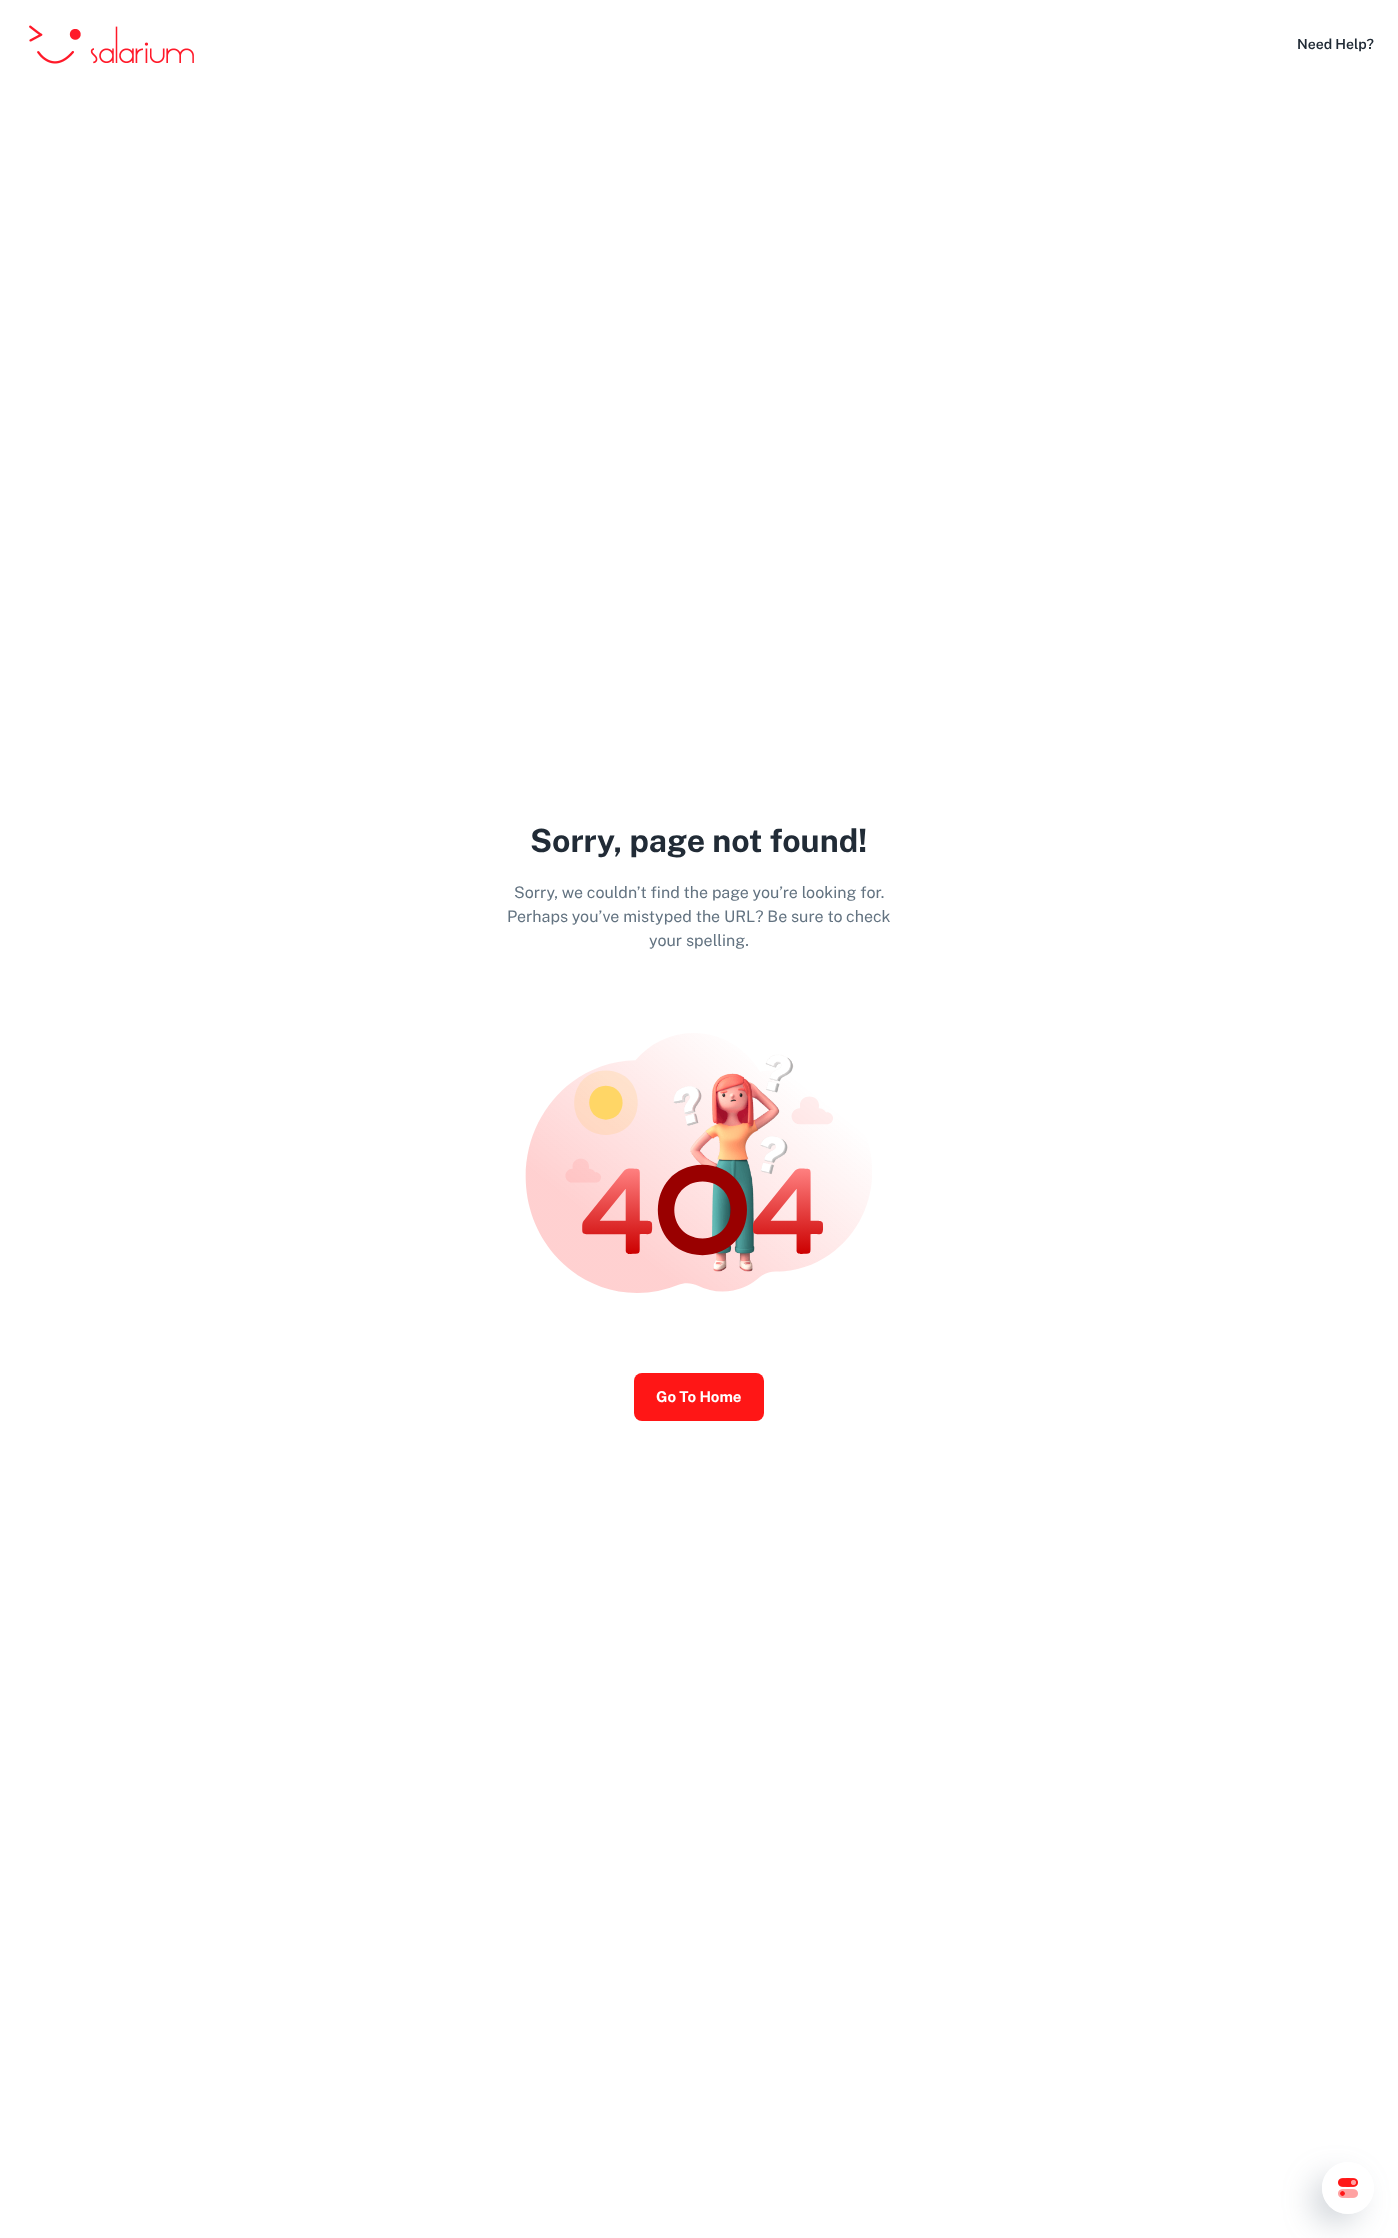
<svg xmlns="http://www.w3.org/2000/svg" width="1398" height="2238">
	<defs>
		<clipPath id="clip1"><path d="M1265 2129H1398V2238H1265ZM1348 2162C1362.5 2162 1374 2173.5 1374 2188C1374 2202.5 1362.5 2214 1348 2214C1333.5 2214 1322 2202.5 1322 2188C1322 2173.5 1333.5 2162 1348 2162Z" clip-rule="evenodd" /></clipPath>
	</defs>
	<rect width="100%" height="100%" fill="#FFFFFF" />
	<image x="29" y="25" width="165" height="39" href="assets/img1.png" />
	<text x="1297" y="49" font-family="Public Sans" font-size="14" font-weight="600" fill="#212B36">Need Help?</text>
	<text x="530" y="852" font-family="Public Sans" font-size="32" font-weight="700" fill="#212B36">Sorry, page not found!</text>
	<g font-family="Public Sans" font-size="16" fill="#637381">
		<text x="514" y="898">Sorry, we couldn’t find the page you’re looking for.</text>
		<text x="507" y="922">Perhaps you’ve mistyped the URL? Be sure to check</text>
		<text x="649" y="946">your spelling.</text>
	</g>
	<image x="525" y="1033" width="347" height="260" href="assets/img2.png" />
	<rect x="634" y="1373" width="130" height="48" rx="8" fill="#FF1616" />
	<text x="656" y="1402" font-family="Public Sans" font-size="15" font-weight="700" fill="#FFFFFF">Go To Home</text>
	<g clip-path="url(#clip1)">
		<rect x="1314" y="2178" width="44" height="44" rx="22" fill="#637381" fill-opacity="0.36" filter="blur(16px)" />
	</g>
	<circle cx="1348" cy="2188" r="26" fill="#FFFFFF" fill-opacity="0.8" />
	<image x="1338" y="2178" width="20" height="20" href="assets/img3.png" />
</svg>
